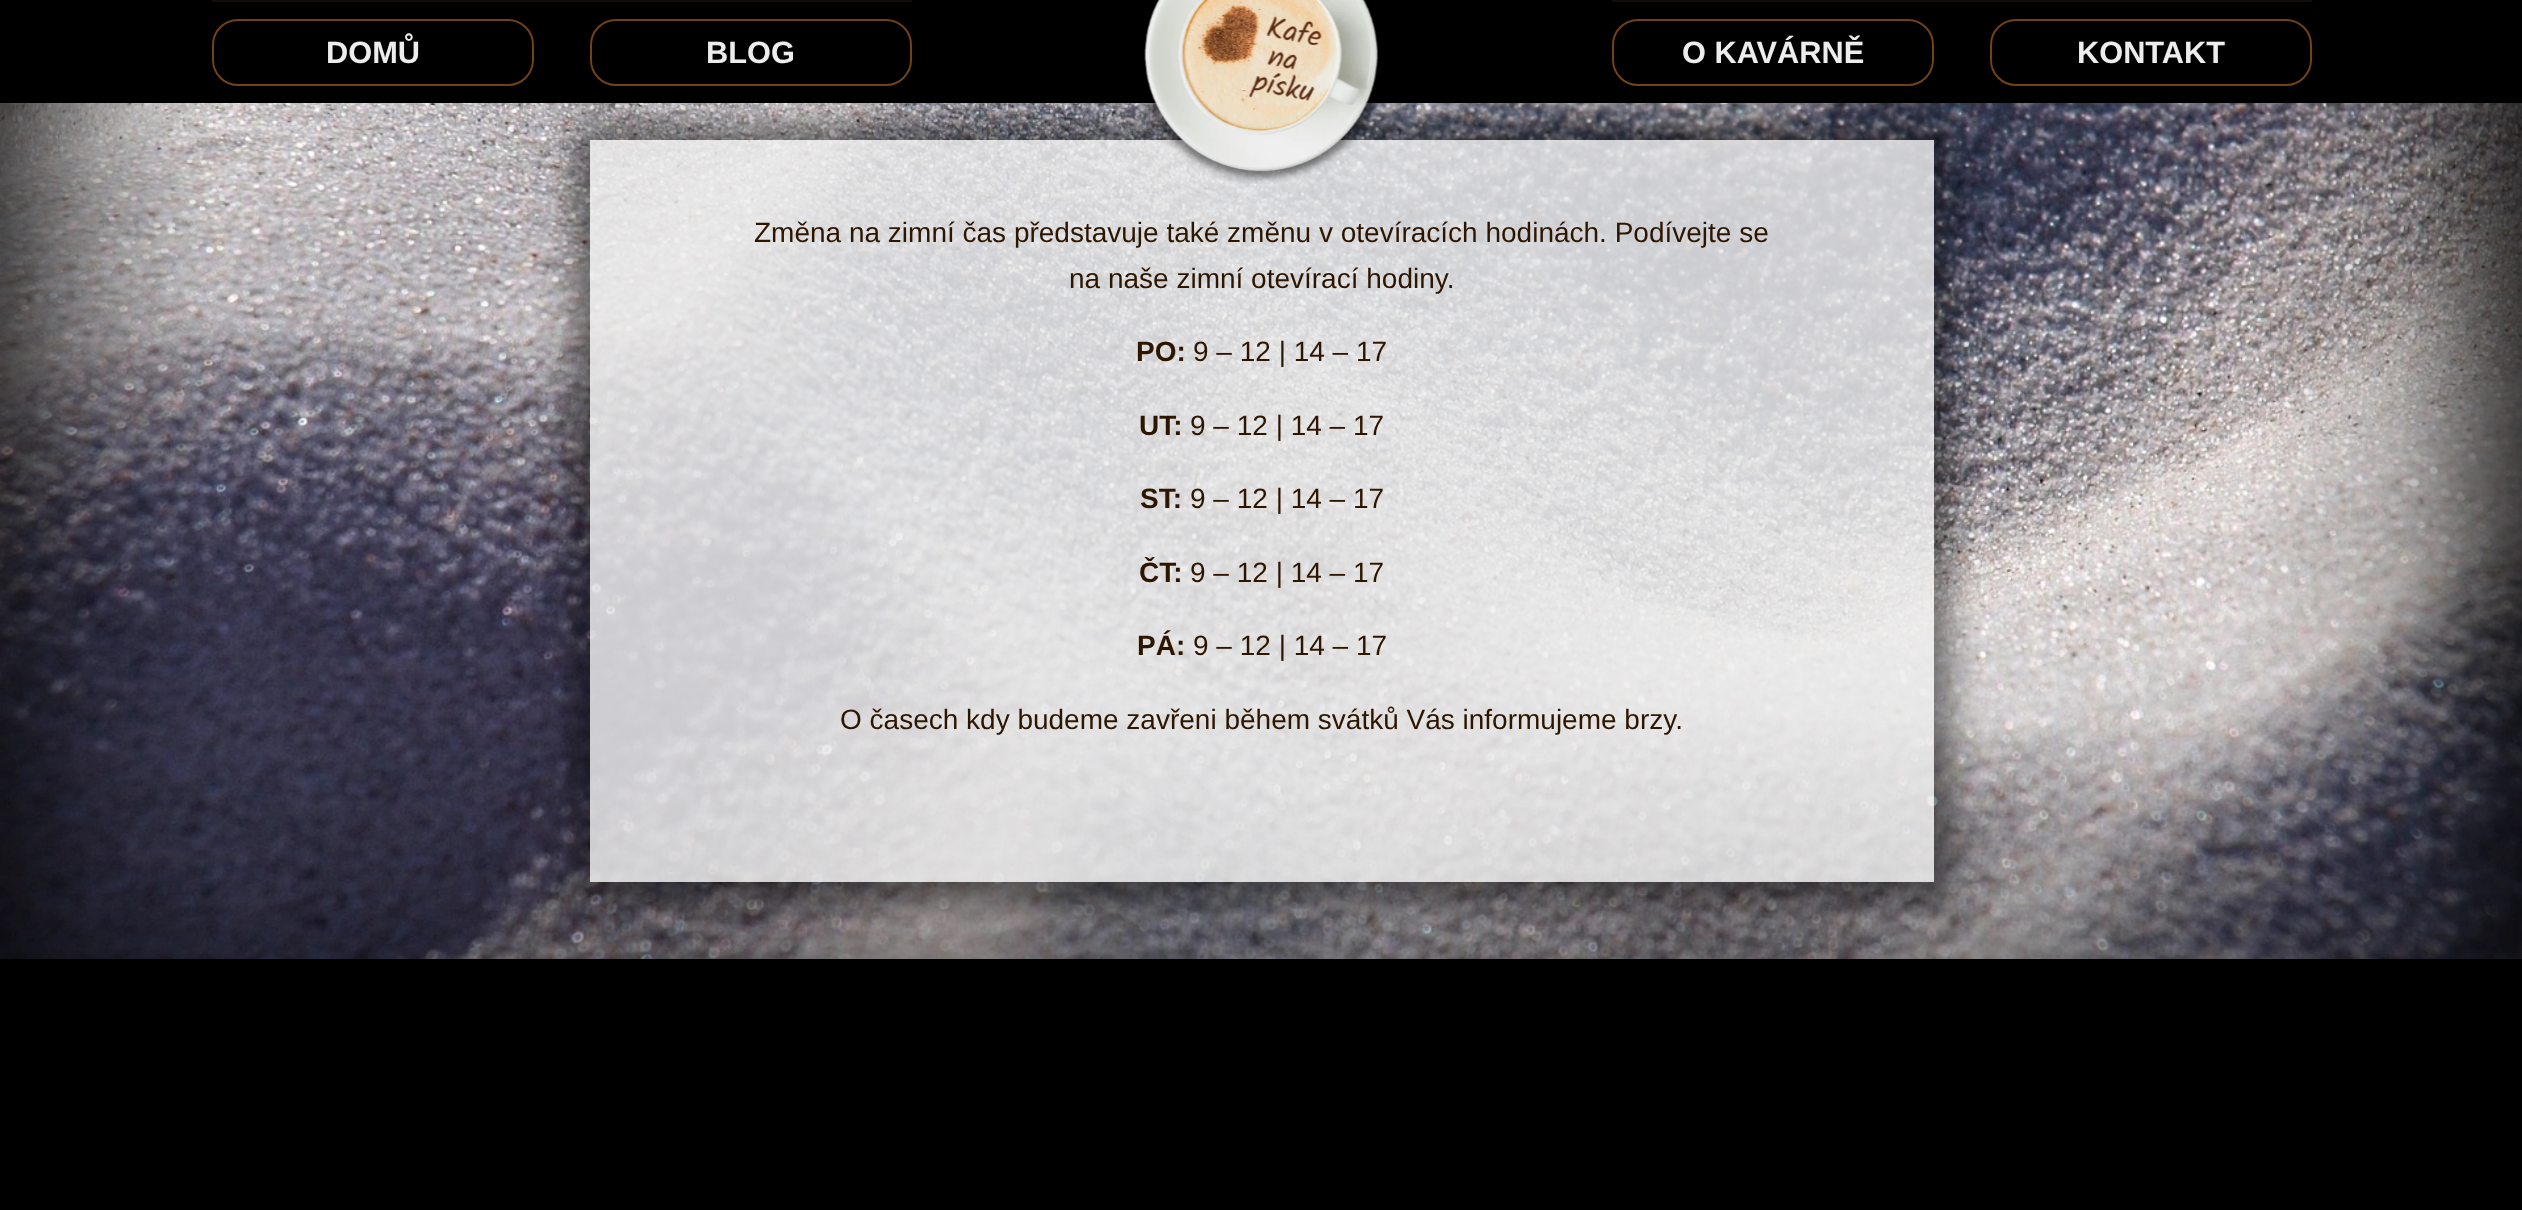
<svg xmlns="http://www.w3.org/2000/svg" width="2522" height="1210">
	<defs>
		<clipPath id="clip1"><path d="M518 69H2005V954H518ZM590 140H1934V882H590Z" clip-rule="evenodd" /></clipPath>
	</defs>
	<rect width="100%" height="100%" fill="#000000" />
	<image x="0" y="103" width="2522" height="856" href="assets/img2.png" />
	<g clip-path="url(#clip1)">
		<rect x="572" y="123" width="1379" height="777" fill="#000000" fill-opacity="0.5" filter="blur(17.5px)" />
	</g>
	<rect x="590" y="140" width="1344" height="742" fill="#EDEDED" fill-opacity="0.83" />
	<image x="1142" y="0" width="239" height="184" href="assets/img1.png" />
	<rect x="212" y="0" width="700" height="2" fill="#150C04" />
	<rect x="213" y="20" width="320" height="65" rx="25" fill="none" stroke="#724115" stroke-width="2" />
	<text x="326" y="63" font-family="Liberation Sans" font-size="30.75" font-weight="700" fill="#EDEDED">DOMŮ</text>
	<rect x="591" y="20" width="320" height="65" rx="25" fill="none" stroke="#724115" stroke-width="2" />
	<text x="706" y="63" font-family="Liberation Sans" font-size="30.75" font-weight="700" fill="#EDEDED">BLOG</text>
	<rect x="1612" y="0" width="700" height="2" fill="#150C04" />
	<rect x="1613" y="20" width="320" height="65" rx="25" fill="none" stroke="#724115" stroke-width="2" />
	<text x="1682" y="63" font-family="Liberation Sans" font-size="30.75" font-weight="700" fill="#EDEDED">O KAVÁRNĚ</text>
	<rect x="1991" y="20" width="320" height="65" rx="25" fill="none" stroke="#724115" stroke-width="2" />
	<text x="2077" y="63" font-family="Liberation Sans" font-size="30.75" font-weight="700" fill="#EDEDED">KONTAKT</text>
	<g font-family="Liberation Sans" font-size="28" fill="#2D1600">
		<text x="754" y="242">Změna na zimní čas představuje také změnu v otevíracích hodinách. Podívejte se</text>
		<text x="1069" y="288">na naše zimní otevírací hodiny.</text>
	</g>
	<text x="1136" y="361" font-family="Liberation Sans" font-size="28" font-weight="700" fill="#2D1600">PO:</text>
	<text x="1193" y="361" font-family="Liberation Sans" font-size="28" fill="#2D1600">9 – 12 | 14 – 17</text>
	<text x="1139" y="435" font-family="Liberation Sans" font-size="28" font-weight="700" fill="#2D1600">UT:</text>
	<text x="1190" y="435" font-family="Liberation Sans" font-size="28" fill="#2D1600">9 – 12 | 14 – 17</text>
	<text x="1140" y="508" font-family="Liberation Sans" font-size="28" font-weight="700" fill="#2D1600">ST:</text>
	<text x="1190" y="508" font-family="Liberation Sans" font-size="28" fill="#2D1600">9 – 12 | 14 – 17</text>
	<text x="1139" y="582" font-family="Liberation Sans" font-size="28" font-weight="700" fill="#2D1600">ČT:</text>
	<text x="1190" y="582" font-family="Liberation Sans" font-size="28" fill="#2D1600">9 – 12 | 14 – 17</text>
	<text x="1137" y="655" font-family="Liberation Sans" font-size="28" font-weight="700" fill="#2D1600">PÁ:</text>
	<g font-family="Liberation Sans" font-size="28" fill="#2D1600">
		<text x="1193" y="655">9 – 12 | 14 – 17</text>
		<text x="840" y="729">O časech kdy budeme zavřeni během svátků Vás informujeme brzy.</text>
	</g>
</svg>
